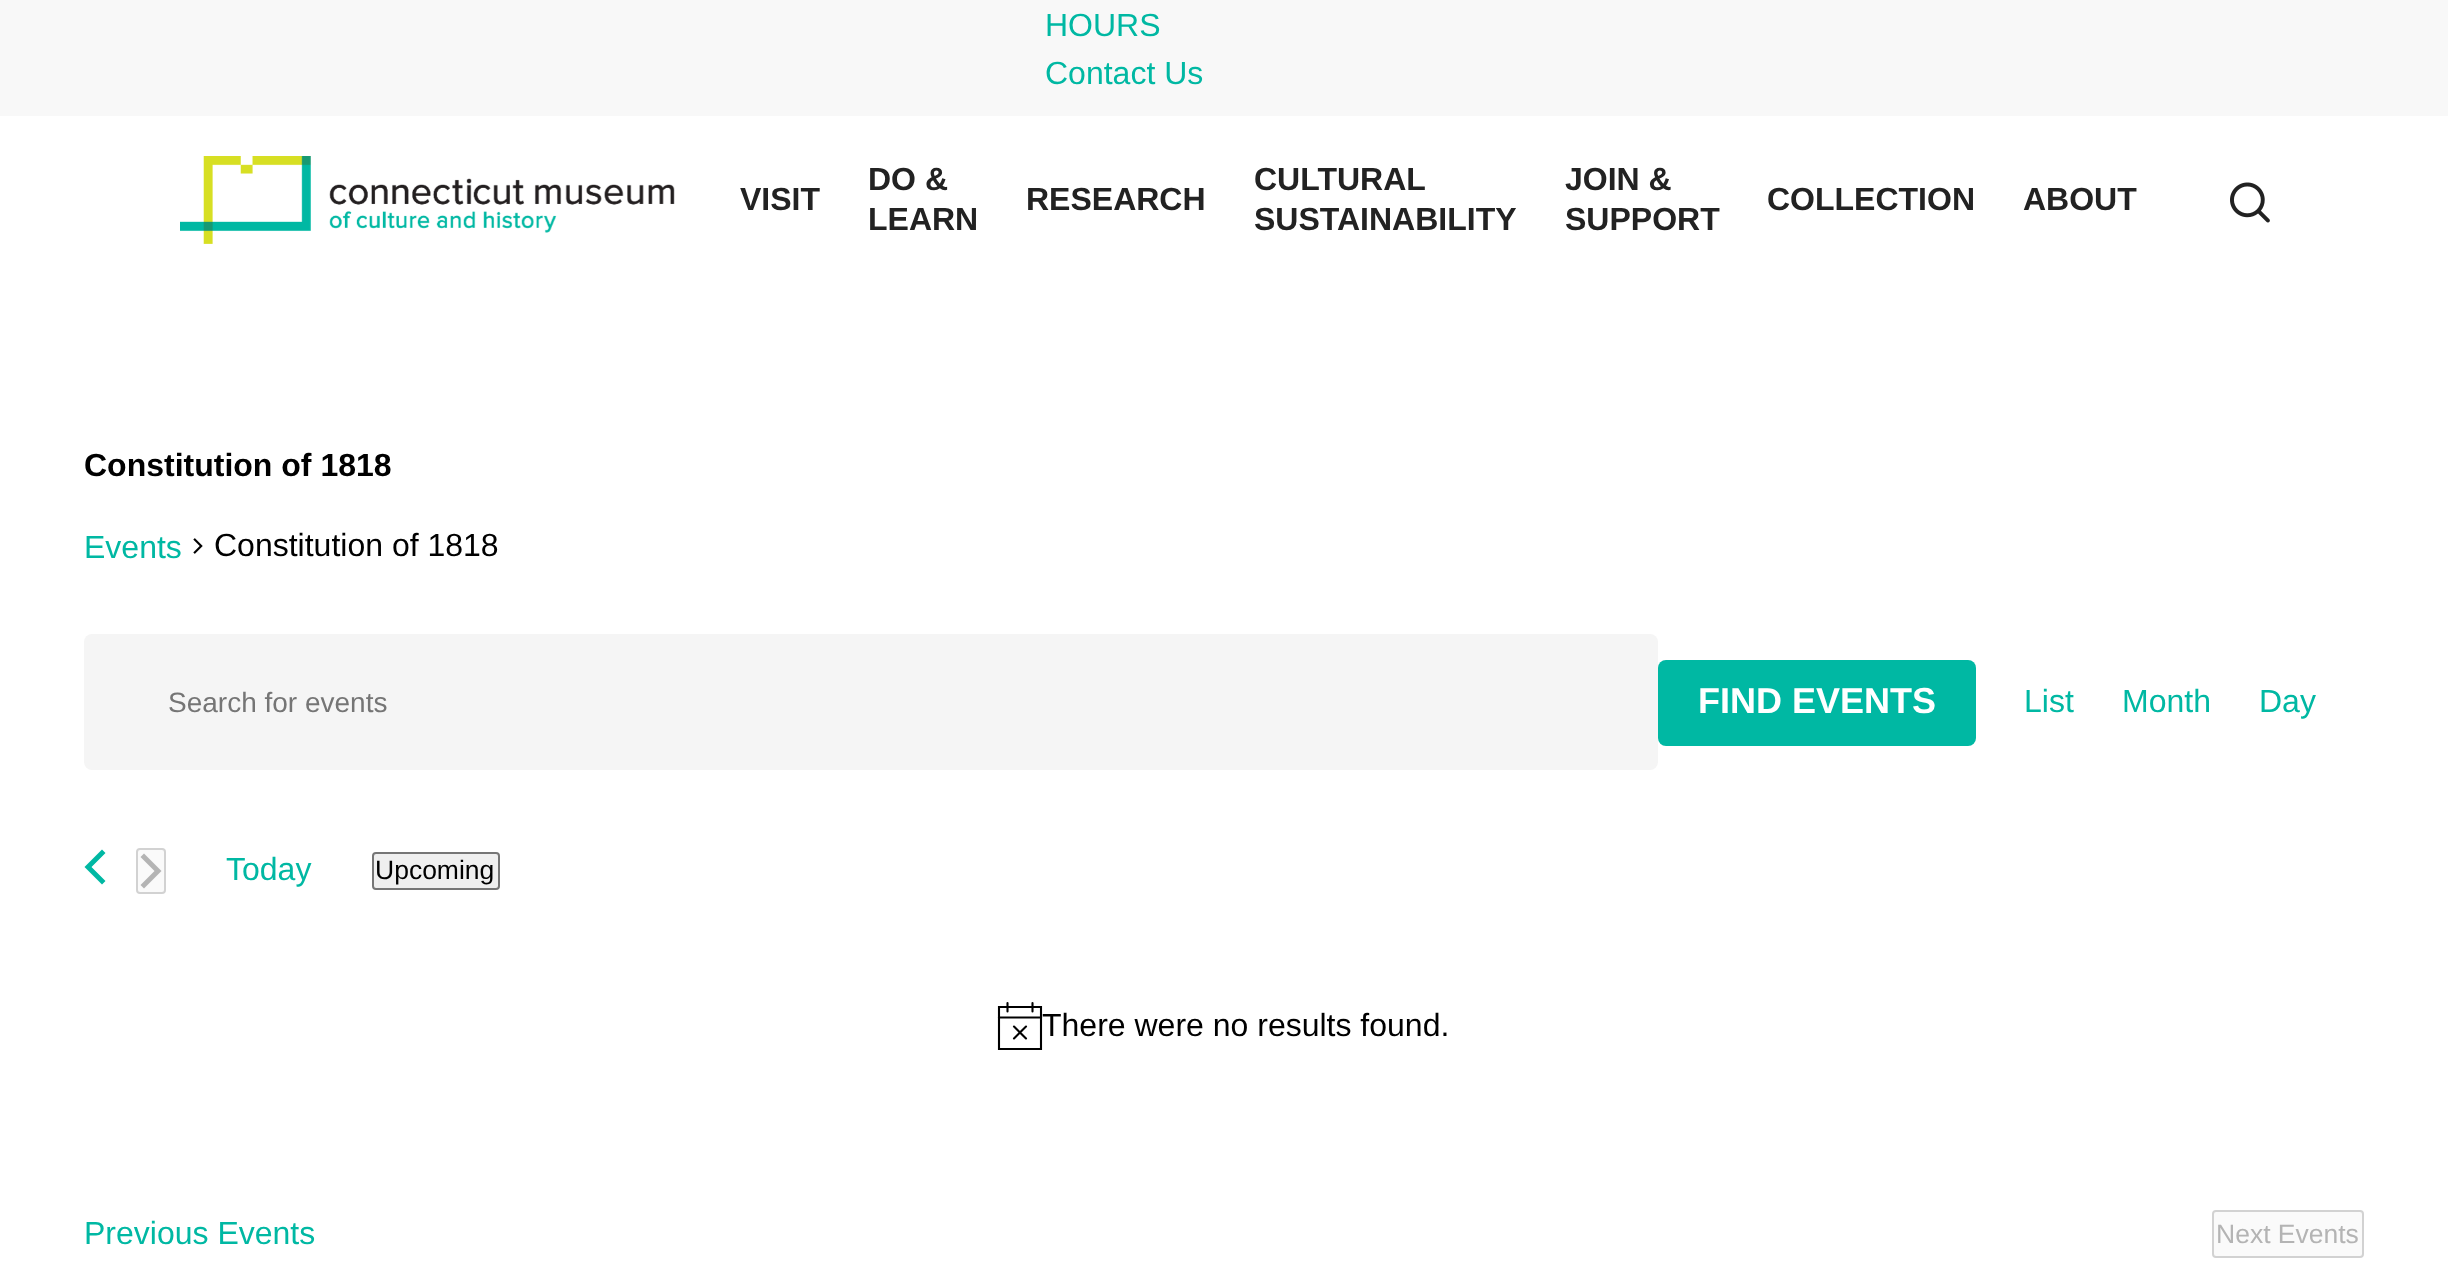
<svg xmlns="http://www.w3.org/2000/svg" width="2448" height="1280">
	<rect width="100%" height="100%" fill="#FFFFFF" />
	<rect x="0" y="0" width="2448" height="116" fill="#F8F8F8" />
	<g font-family="Liberation Sans" font-size="32" fill="#00B8A3">
		<text x="1045" y="36">HOURS</text>
		<text x="1045" y="84">Contact Us</text>
	</g>
	<image x="180" y="156" width="495" height="88" href="assets/img1.png" />
	<g font-family="Liberation Sans" font-size="32" font-weight="700" fill="#222222">
		<text x="740" y="210">VISIT</text>
		<text x="868" y="190">DO &amp;</text>
		<text x="868" y="230">LEARN</text>
		<text x="1026" y="210">RESEARCH</text>
		<text x="1254" y="190">CULTURAL</text>
		<text x="1254" y="230">SUSTAINABILITY</text>
		<text x="1565" y="190">JOIN &amp;</text>
		<text x="1565" y="230">SUPPORT</text>
		<text x="1767" y="210">COLLECTION</text>
		<text x="2023" y="210">ABOUT</text>
	</g>
	<image x="2230" y="182" width="40" height="41" href="assets/img2.png" />
	<text x="84" y="476" font-family="Liberation Sans" font-size="32" font-weight="700" fill="#000000">Constitution of 1818</text>
	<text x="84" y="558" font-family="Liberation Sans" font-size="32" fill="#00B8A3">Events</text>
	<image x="193" y="538" width="10" height="16" href="assets/img3.png" />
	<text x="214" y="556" font-family="Liberation Sans" font-size="32" fill="#000000">Constitution of 1818</text>
	<rect x="84" y="634" width="1574" height="136" rx="8" fill="#F5F5F5" />
	<text x="168" y="712" font-family="Liberation Sans" font-size="28" fill="#757575">Search for events</text>
	<rect x="1658" y="660" width="318" height="86" rx="8" fill="#00B8A3" />
	<text x="1698" y="713" font-family="Liberation Sans" font-size="36" font-weight="700" fill="#FFFFFF">FIND EVENTS</text>
	<g font-family="Liberation Sans" font-size="32" fill="#00B8A3">
		<text x="2024" y="712">List</text>
		<text x="2122" y="712">Month</text>
		<text x="2259" y="712">Day</text>
	</g>
	<path d="M105.5 881L102 884.5L84.5 867L102 849.5L105.5 853L91.5 867Z" fill="#00B8A3" />
	<rect x="137" y="849" width="28" height="44" rx="3" fill="#FAFAFA" stroke="#D2D2D2" stroke-width="2" />
	<path d="M140.5 857L144 853.5L161.5 871L144 888.5L140.5 885L154.5 871Z" fill="#B4B4B4" />
	<text x="226" y="880" font-family="Liberation Sans" font-size="32" fill="#00B8A3">Today</text>
	<rect x="373" y="853" width="126" height="36" rx="3" fill="#EFEFEF" stroke="#767676" stroke-width="2" />
	<text x="375" y="879" font-family="Liberation Sans" font-size="26.5" fill="#000000">Upcoming</text>
	<path d="M999 1007H1041V1049H999Z" fill="none" stroke="#000000" stroke-width="2.1" />
	<path d="M1014 1026.5L1026 1038.5M1026 1026.5L1014 1038.5M1007.5 1003V1011.5M1032.5 1003V1011.5" fill="none" stroke="#000000" stroke-width="2.1" stroke-linecap="round" />
	<path d="M999 1017.5H1041" fill="none" stroke="#000000" stroke-width="2.1" stroke-linecap="square" />
	<text x="1042" y="1036" font-family="Liberation Sans" font-size="32" fill="#000000">There were no results found.</text>
	<text x="84" y="1244" font-family="Liberation Sans" font-size="32" fill="#00B8A3">Previous Events</text>
	<rect x="2213" y="1211" width="150" height="46" rx="3" fill="#FAFAFA" stroke="#D2D2D2" stroke-width="2" />
	<text x="2216" y="1243" font-family="Liberation Sans" font-size="26.5" fill="#B4B4B4">Next Events</text>
</svg>
